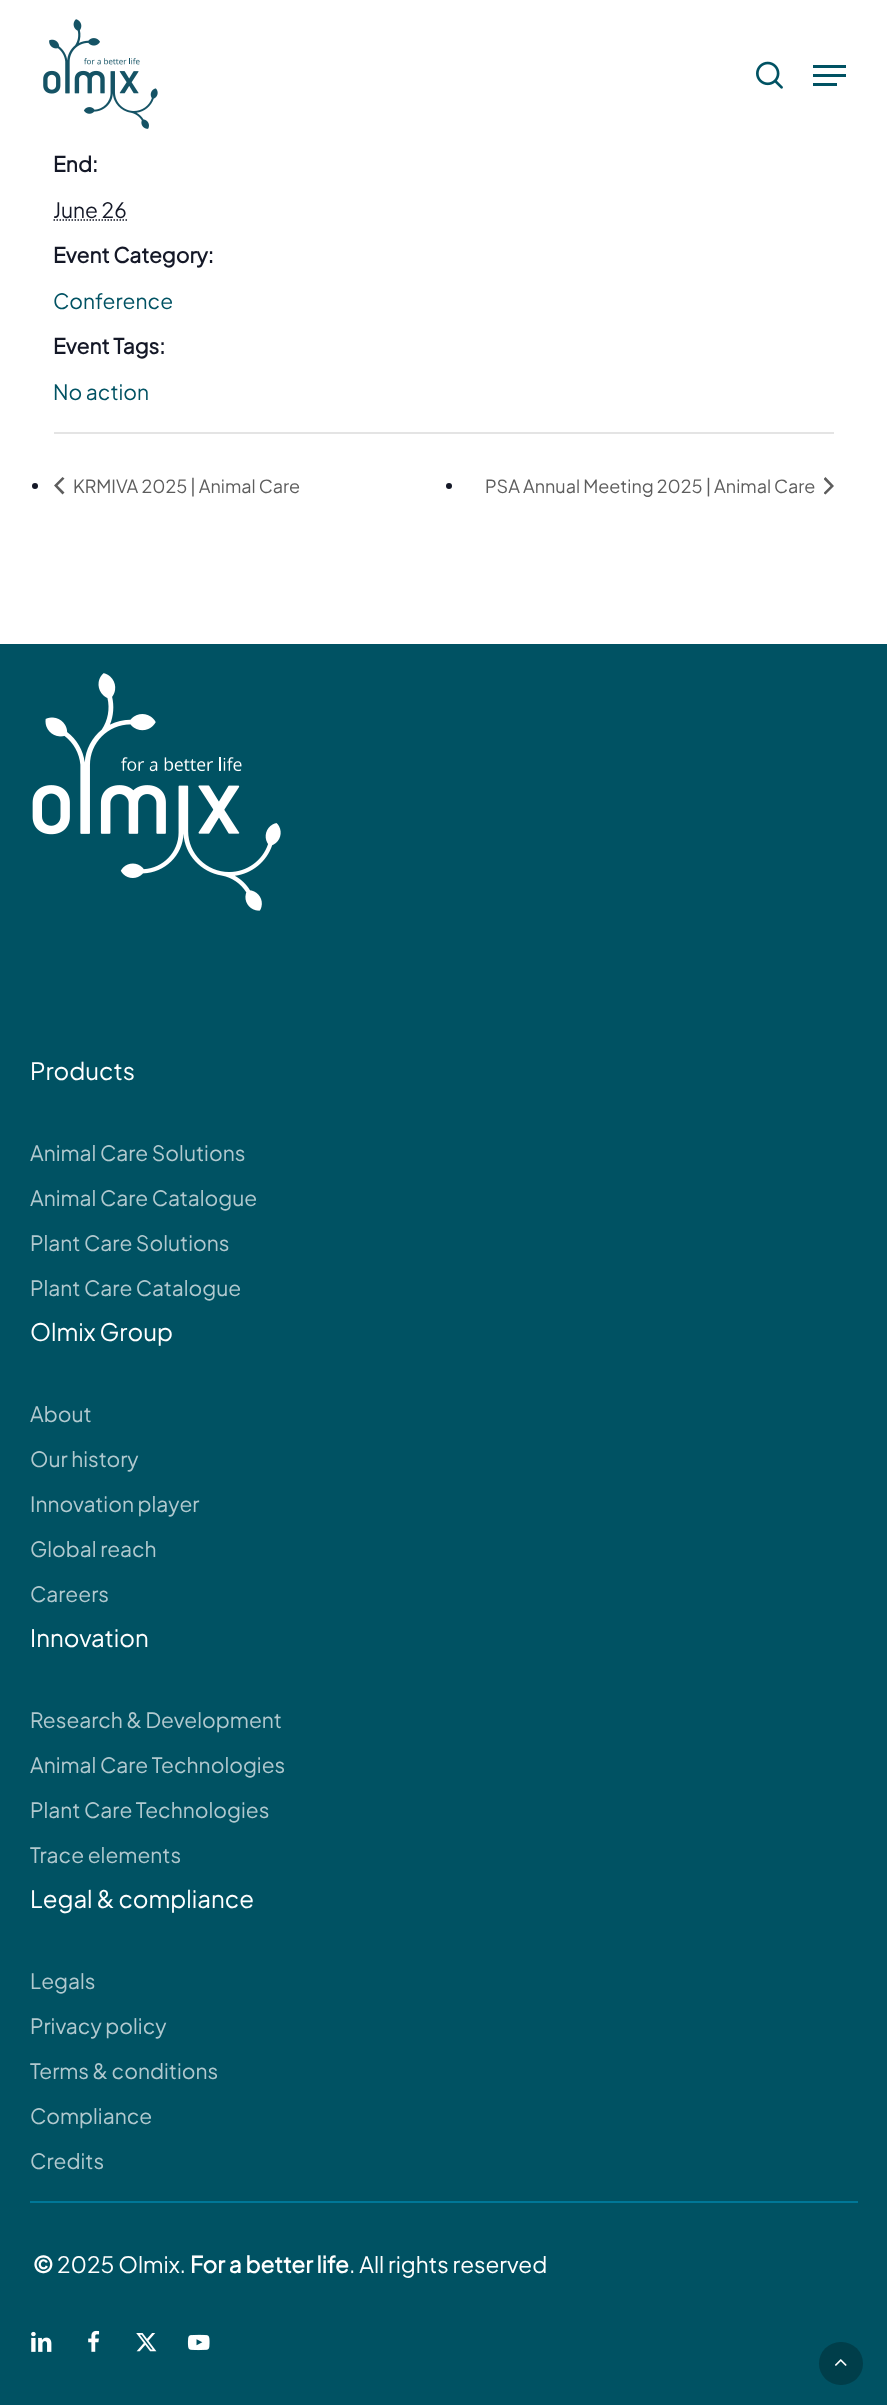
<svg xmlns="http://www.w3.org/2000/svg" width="887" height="2405">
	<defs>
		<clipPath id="clip1"><rect x="824" y="477" width="10" height="18" /></clipPath>
	</defs>
	<rect width="100%" height="100%" fill="#FFFFFF" />
	<image x="43" y="19" width="115" height="110" href="assets/img1.png" />
	<image x="756" y="61" width="27" height="28" href="assets/img2.png" />
	<rect x="813" y="65" width="33" height="3" fill="#005263" />
	<rect x="813" y="83" width="24" height="3" fill="#005263" />
	<rect x="813" y="74" width="33" height="3" fill="#005263" />
	<text x="53" y="172" font-family="Plus Jakarta Sans" font-size="21" font-weight="700" fill="#141827">End:</text>
	<text x="53" y="218" font-family="Plus Jakarta Sans" font-size="21" fill="#141827">June 26</text>
	<path d="M53.5 220H127" fill="none" stroke="#141827" stroke-width="1.5" stroke-dasharray="1.5 1.5" />
	<text x="53" y="263" font-family="Plus Jakarta Sans" font-size="21" font-weight="700" fill="#141827">Event Category:</text>
	<text x="53" y="309" font-family="Plus Jakarta Sans" font-size="21" fill="#005263">Conference</text>
	<text x="53" y="354" font-family="Plus Jakarta Sans" font-size="21" font-weight="700" fill="#141827">Event Tags:</text>
	<text x="53" y="400" font-family="Plus Jakarta Sans" font-size="21" fill="#005263">No action</text>
	<rect x="54" y="432" width="780" height="2" fill="#E4E4E4" />
	<circle cx="35" cy="486" r="3" fill="#141827" />
	<path d="M64.5 492.5L62.5 494.5L54 485.5L62.5 477L64.5 478.5L57.5 485.5Z" fill="#5D5D5D" />
	<text x="73" y="493" font-family="Plus Jakarta Sans" font-size="18" fill="#5D5D5D">KRMIVA 2025 | Animal Care</text>
	<circle cx="449" cy="486" r="3" fill="#141827" />
	<text x="485" y="493" font-family="Plus Jakarta Sans" font-size="18" fill="#5D5D5D">PSA Annual Meeting 2025 | Animal Care</text>
	<g clip-path="url(#clip1)">
		<path d="M823.5 479L825.5 477L834 486L825.5 494.5L823.5 493L830.5 486Z" fill="#5D5D5D" />
	</g>
	<rect x="0" y="644" width="887" height="1761" fill="#005263" />
	<image x="32" y="673" width="249" height="238" href="assets/img3.png" />
	<text x="30" y="1080" font-family="Plus Jakarta Sans" font-size="24" fill="#FFFFFF">Products</text>
	<g font-family="Plus Jakarta Sans" font-size="21" fill="#B1C9CF">
		<text x="30" y="1161">Animal Care Solutions</text>
		<text x="30" y="1206">Animal Care Catalogue</text>
		<text x="30" y="1251">Plant Care Solutions</text>
		<text x="30" y="1296">Plant Care Catalogue</text>
	</g>
	<text x="30" y="1341" font-family="Plus Jakarta Sans" font-size="24" fill="#FFFFFF">Olmix Group</text>
	<g font-family="Plus Jakarta Sans" font-size="21" fill="#B1C9CF">
		<text x="30" y="1422">About</text>
		<text x="30" y="1467">Our history</text>
		<text x="30" y="1512">Innovation player</text>
		<text x="30" y="1557">Global reach</text>
		<text x="30" y="1602">Careers</text>
	</g>
	<text x="30" y="1647" font-family="Plus Jakarta Sans" font-size="24" fill="#FFFFFF">Innovation</text>
	<g font-family="Plus Jakarta Sans" font-size="21" fill="#B1C9CF">
		<text x="30" y="1728">Research &amp; Development</text>
		<text x="30" y="1773">Animal Care Technologies</text>
		<text x="30" y="1818">Plant Care Technologies</text>
		<text x="30" y="1863">Trace elements</text>
	</g>
	<text x="30" y="1908" font-family="Plus Jakarta Sans" font-size="24" fill="#FFFFFF">Legal &amp; compliance</text>
	<g font-family="Plus Jakarta Sans" font-size="21" fill="#B1C9CF">
		<text x="30" y="1989">Legals</text>
		<text x="30" y="2034">Privacy policy</text>
		<text x="30" y="2079">Terms &amp; conditions</text>
		<text x="30" y="2124">Compliance</text>
		<text x="30" y="2169">Credits</text>
	</g>
	<rect x="30" y="2201" width="828" height="2" fill="#007797" />
	<text x="33" y="2273" font-family="Plus Jakarta Sans" font-size="22.5" font-weight="700" fill="#FFFFFF">©</text>
	<text x="57" y="2273" font-family="Plus Jakarta Sans" font-size="22.5" fill="#FFFFFF">2025 Olmix.</text>
	<text x="190" y="2273" font-family="Plus Jakarta Sans" font-size="22.5" font-weight="700" fill="#FFFFFF">For a better life</text>
	<text x="349" y="2273" font-family="Plus Jakarta Sans" font-size="22.5" fill="#FFFFFF">. All rights reserved</text>
	<image x="31" y="2331" width="21" height="21" href="assets/img4.png" />
	<image x="88" y="2330" width="12" height="22" href="assets/img5.png" />
	<image x="136" y="2333" width="21" height="19" href="assets/img6.png" />
	<image x="187" y="2334" width="23" height="17" href="assets/img7.png" />
	<rect x="819" y="2342" width="44" height="43" rx="21.5" fill="#003E4A" />
	<image x="835" y="2359" width="12" height="7" href="assets/img8.png" />
</svg>
